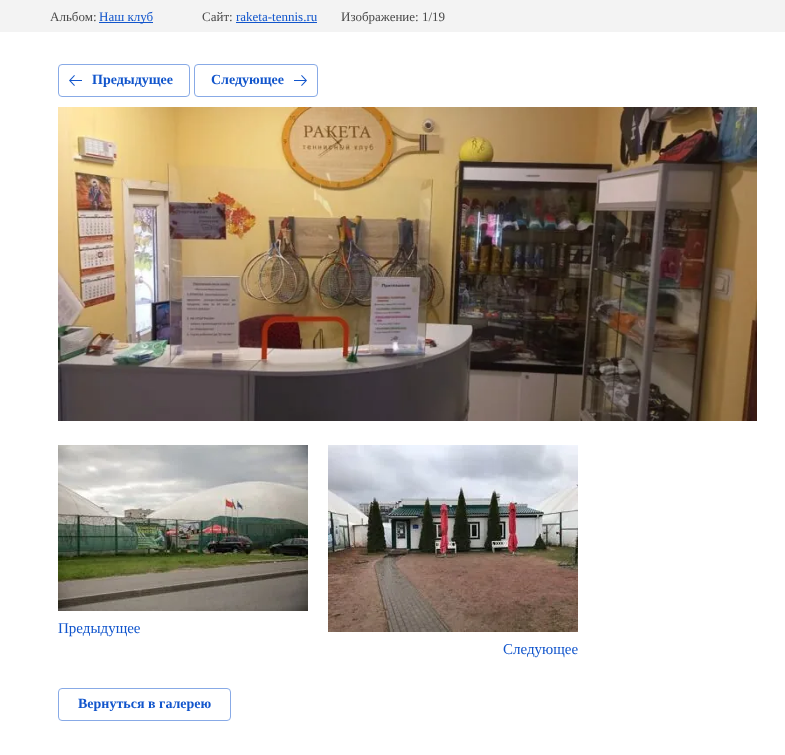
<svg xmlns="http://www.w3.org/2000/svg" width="785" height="755">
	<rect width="100%" height="100%" fill="#FFFFFF" />
	<rect x="0" y="0" width="785" height="32" fill="#F3F3F3" />
	<text x="50" y="21" font-family="Liberation Serif" font-size="13" fill="#484848">Альбом:</text>
	<rect x="99" y="22" width="54" height="1" fill="#1155CC" />
	<text x="99" y="21" font-family="Liberation Serif" font-size="13" fill="#1155CC">Наш клуб</text>
	<text x="202" y="21" font-family="Liberation Serif" font-size="13" fill="#484848">Сайт:</text>
	<text x="236" y="21" font-family="Liberation Serif" font-size="13" fill="#1155CC">raketa-tennis.ru</text>
	<rect x="236" y="22" width="81" height="1" fill="#1155CC" />
	<text x="341" y="21" font-family="Liberation Serif" font-size="13" fill="#484848">Изображение: 1/19</text>
	<rect x="58.5" y="64.5" width="131" height="32" rx="3.5" fill="none" stroke="#88AAE6" />
	<image x="69" y="75" width="13" height="11" href="assets/img1.png" />
	<text x="92" y="84" font-family="Liberation Serif" font-size="14" font-weight="700" fill="#1155CC">Предыдущее</text>
	<rect x="194.5" y="64.5" width="123" height="32" rx="3.5" fill="none" stroke="#88AAE6" />
	<text x="211" y="84" font-family="Liberation Serif" font-size="14" font-weight="700" fill="#1155CC">Следующее</text>
	<image x="294" y="75" width="13" height="11" href="assets/img2.png" />
	<image x="58" y="107" width="699" height="314" href="assets/img3.png" />
	<image x="58" y="445" width="250" height="166" href="assets/img4.png" />
	<text x="58" y="633" font-family="Liberation Serif" font-size="15" fill="#1155CC">Предыдущее</text>
	<image x="328" y="445" width="250" height="187" href="assets/img5.png" />
	<text x="503" y="654" font-family="Liberation Serif" font-size="15" fill="#1155CC">Следующее</text>
	<rect x="58.5" y="688.5" width="172" height="32" rx="3.5" fill="none" stroke="#88AAE6" />
	<text x="78" y="708" font-family="Liberation Serif" font-size="14" font-weight="700" fill="#1155CC">Вернуться в галерею</text>
</svg>
